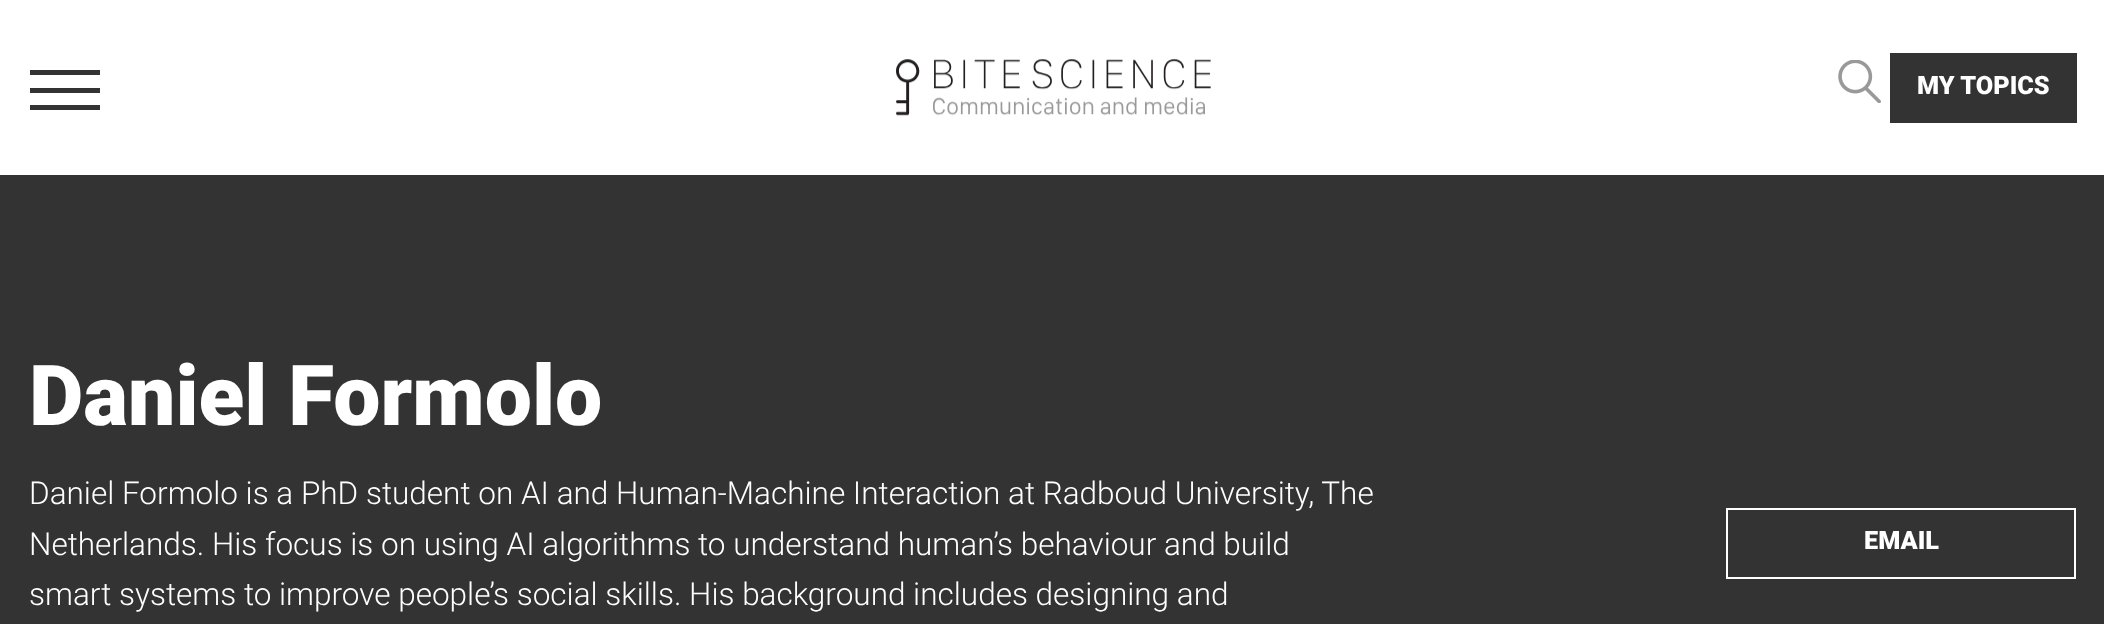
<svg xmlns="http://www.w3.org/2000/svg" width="2104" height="624">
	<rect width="100%" height="100%" fill="#FFFFFF" />
	<image x="896" y="59" width="315" height="57" href="assets/img1.png" />
	<rect x="30" y="70" width="70" height="5" fill="#333333" />
	<rect x="30" y="88" width="70" height="5" fill="#333333" />
	<rect x="30" y="105" width="70" height="5" fill="#333333" />
	<image x="1838" y="60" width="43" height="43" href="assets/img2.png" />
	<rect x="1890" y="53" width="187" height="70" fill="#333333" />
	<text x="1917" y="94" font-family="Roboto" font-size="25.25" font-weight="900" fill="#FFFFFF">MY TOPICS</text>
	<rect x="0" y="175" width="2104" height="449" fill="#333333" />
	<text x="29" y="425" font-family="Roboto" font-size="84" font-weight="900" fill="#FFFFFF">Daniel Formolo</text>
	<g font-family="Roboto" font-size="31.5" font-weight="300" fill="#FFFFFF">
		<text x="29" y="504">Daniel Formolo is a PhD student on AI and Human-Machine Interaction at Radboud University, The</text>
		<text x="29" y="555">Netherlands. His focus is on using AI algorithms to understand human’s behaviour and build</text>
		<text x="29" y="605">smart systems to improve people’s social skills. His background includes designing and</text>
	</g>
	<rect x="1727" y="509" width="348" height="69" fill="none" stroke="#FFFFFF" stroke-width="2" />
	<text x="1864" y="549" font-family="Roboto" font-size="25.25" font-weight="900" fill="#FFFFFF">EMAIL</text>
</svg>
